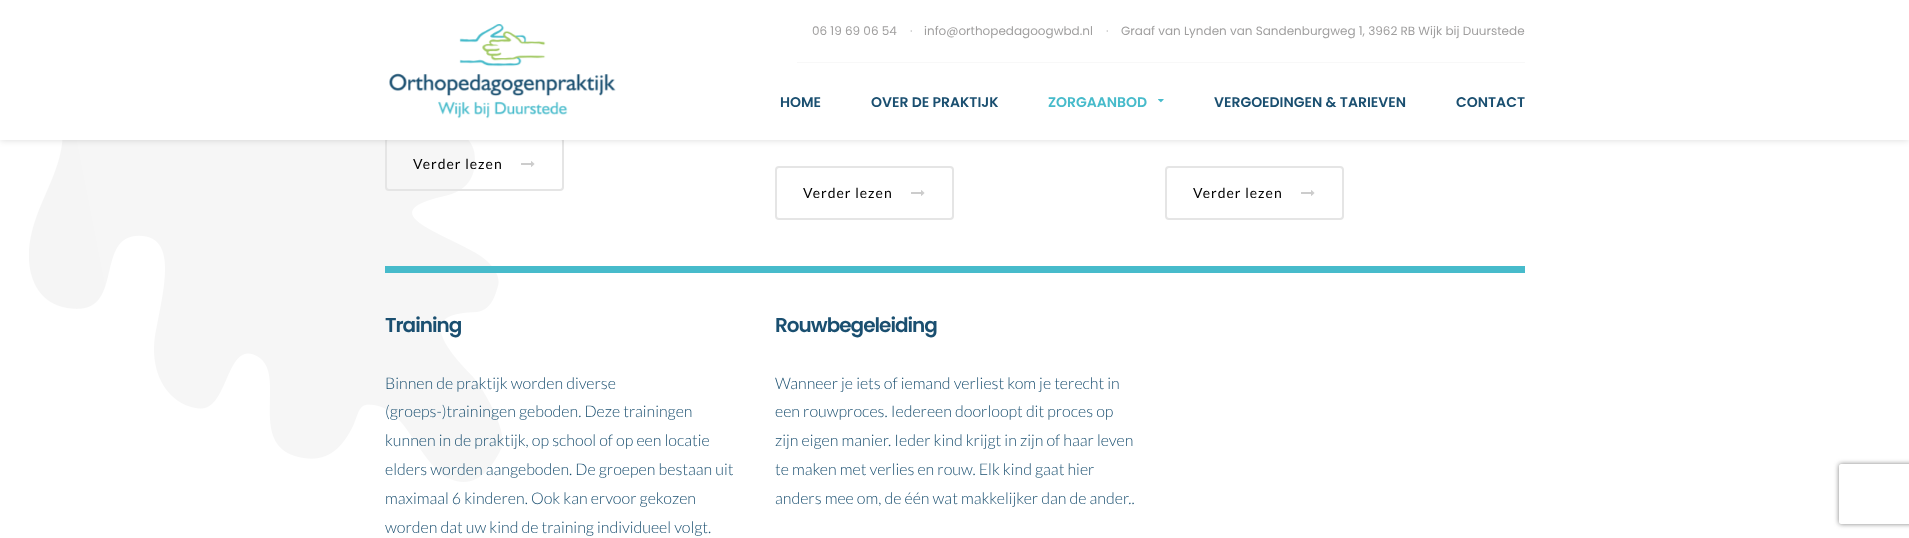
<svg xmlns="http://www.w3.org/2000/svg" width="1909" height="538">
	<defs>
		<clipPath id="clip1"><path d="M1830 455H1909V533H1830ZM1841 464H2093C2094 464 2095 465 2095 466V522C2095 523 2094 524 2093 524H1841C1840 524 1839 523 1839 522V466C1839 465 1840 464 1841 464Z" clip-rule="evenodd" /></clipPath>
	</defs>
	<rect width="100%" height="100%" fill="#FFFFFF" />
	<image x="29" y="140" width="474" height="342" href="assets/img3.png" />
	<rect x="386" y="138" width="177" height="52" rx="3" fill="none" stroke="#E5E5E5" stroke-width="2" />
	<rect x="0" y="0" width="1909" height="140" fill="#000000" fill-opacity="0.15" filter="blur(3.5px)" />
	<rect x="0" y="0" width="1909" height="140" fill="#FFFFFF" />
	<image x="389" y="24" width="227" height="95" href="assets/img1.png" />
	<rect x="797" y="62" width="728" height="1" fill="#F8F8F8" />
	<text x="812" y="35" font-family="Poppins" font-size="12" fill="#A09F9F">06 19 69 06 54</text>
	<text x="910" y="35" font-family="Poppins" font-size="12" fill="#C1C1C1">·</text>
	<text x="924" y="35" font-family="Poppins" font-size="12" fill="#A09F9F">info@orthopedagoogwbd.nl</text>
	<text x="1106" y="35" font-family="Poppins" font-size="12" fill="#C1C1C1">·</text>
	<text x="1121" y="35" font-family="Poppins" font-size="12" fill="#A09F9F">Graaf van Lynden van Sandenburgweg 1, 3962 RB Wijk bij Duurstede</text>
	<g font-family="Poppins" font-size="14" font-weight="600" fill="#1A4F70">
		<text x="780" y="107">HOME</text>
		<text x="871" y="107">OVER DE PRAKTIJK</text>
	</g>
	<text x="1048" y="107" font-family="Poppins" font-size="14" font-weight="600" fill="#47BBCB">ZORGAANBOD</text>
	<image x="1158" y="99" width="6" height="4" href="assets/img2.png" />
	<g font-family="Poppins" font-size="14" font-weight="600" fill="#1A4F70">
		<text x="1214" y="107">VERGOEDINGEN &amp; TARIEVEN</text>
		<text x="1456" y="107">CONTACT</text>
	</g>
	<text x="413" y="169" font-family="Lato" font-size="14" letter-spacing="1" fill="#000000">Verder lezen</text>
	<image x="521" y="161" width="14" height="6" href="assets/img4.png" />
	<rect x="776" y="167" width="177" height="52" rx="3" fill="none" stroke="#E5E5E5" stroke-width="2" />
	<text x="803" y="198" font-family="Lato" font-size="14" letter-spacing="1" fill="#000000">Verder lezen</text>
	<image x="911" y="190" width="14" height="6" href="assets/img4.png" />
	<rect x="1166" y="167" width="177" height="52" rx="3" fill="none" stroke="#E5E5E5" stroke-width="2" />
	<text x="1193" y="198" font-family="Lato" font-size="14" letter-spacing="1" fill="#000000">Verder lezen</text>
	<image x="1301" y="190" width="14" height="6" href="assets/img4.png" />
	<rect x="385" y="266" width="1140" height="7" fill="#47BBCB" />
	<text x="385" y="332" font-family="Poppins" font-size="20" font-weight="600" letter-spacing="-1" fill="#1A4F70">Training</text>
	<g font-family="Lato" font-size="16" font-weight="300" fill="#1A4F70">
		<text x="385" y="389">Binnen de praktijk worden diverse</text>
		<text x="385" y="417">(groeps-)trainingen geboden. Deze trainingen</text>
		<text x="385" y="446">kunnen in de praktijk, op school of op een locatie</text>
		<text x="385" y="475">elders worden aangeboden. De groepen bestaan uit</text>
		<text x="385" y="504">maximaal 6 kinderen. Ook kan ervoor gekozen</text>
		<text x="385" y="533">worden dat uw kind de training individueel volgt.</text>
	</g>
	<text x="775" y="332" font-family="Poppins" font-size="20" font-weight="600" letter-spacing="-1" fill="#1A4F70">Rouwbegeleiding</text>
	<g font-family="Lato" font-size="16" font-weight="300" fill="#1A4F70">
		<text x="775" y="389">Wanneer je iets of iemand verliest kom je terecht in</text>
		<text x="775" y="417">een rouwproces. Iedereen doorloopt dit proces op</text>
		<text x="775" y="446">zijn eigen manier. Ieder kind krijgt in zijn of haar leven</text>
		<text x="775" y="475">te maken met verlies en rouw. Elk kind gaat hier</text>
		<text x="775" y="504">anders mee om, de één wat makkelijker dan de ander..</text>
	</g>
	<g clip-path="url(#clip1)">
		<rect x="1839" y="464" width="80" height="60" rx="2" fill="#808080" filter="blur(2.5px)" />
	</g>
</svg>
